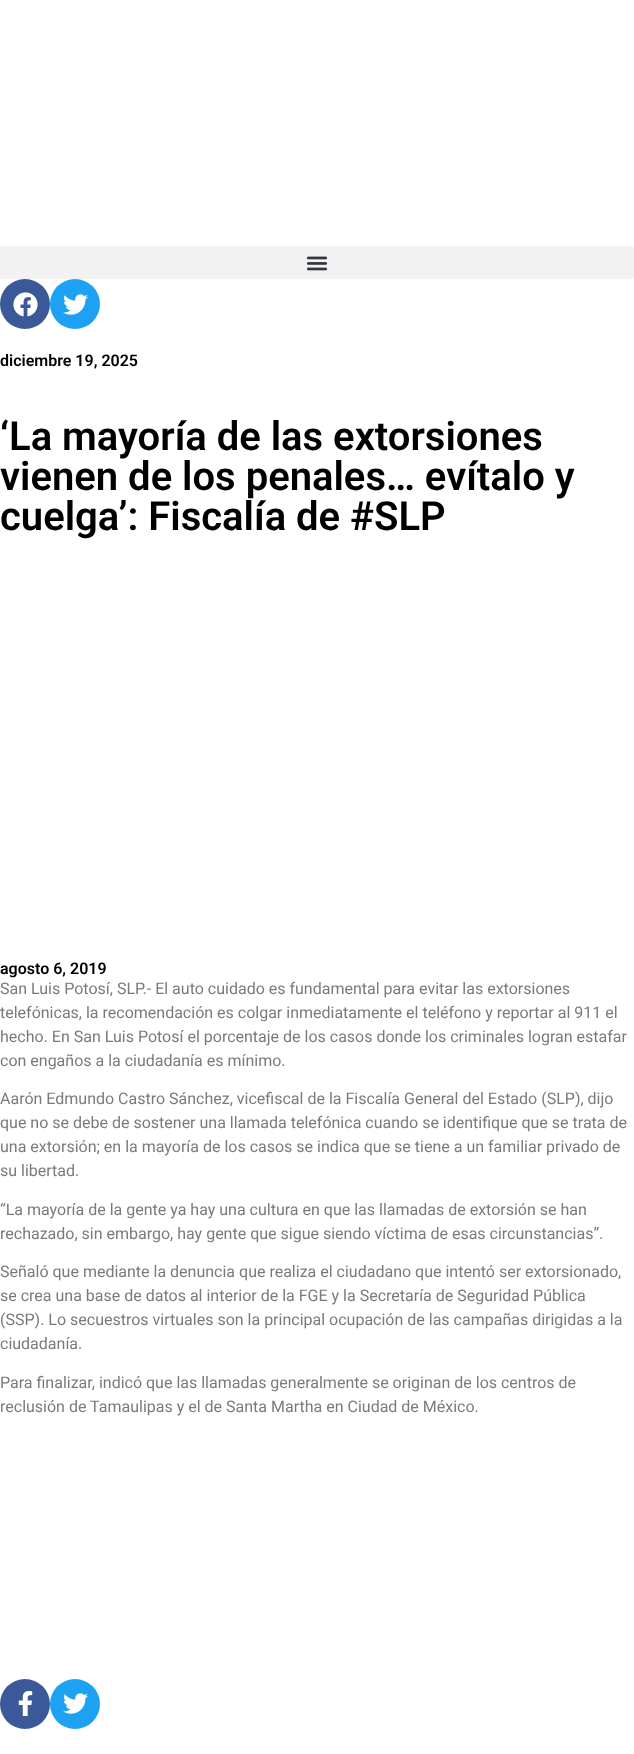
<svg xmlns="http://www.w3.org/2000/svg" width="634" height="1754">
	<rect width="100%" height="100%" fill="#FFFFFF" />
	<rect x="0" y="246" width="634" height="33" rx="3" fill="#F2F2F2" />
	<image x="306" y="256" width="22" height="15" href="assets/img1.png" />
	<circle cx="25" cy="304" r="25" fill="#3B5998" />
	<image x="13" y="292" width="25" height="25" href="assets/img2.png" />
	<circle cx="75" cy="304" r="25" fill="#1DA1F2" />
	<image x="63" y="294" width="25" height="21" href="assets/img3.png" />
	<text x="0" y="366" font-family="Roboto" font-size="16" font-weight="600" fill="#000000">diciembre 19, 2025</text>
	<g font-family="Roboto" font-size="40" font-weight="600" fill="#000000">
		<text x="0" y="450">‘La mayoría de las extorsiones</text>
		<text x="0" y="490">vienen de los penales… evítalo y</text>
		<text x="0" y="530">cuelga’: Fiscalía de #SLP</text>
	</g>
	<text x="0" y="974" font-family="Roboto" font-size="16" font-weight="600" fill="#000000">agosto 6, 2019</text>
	<g font-family="Roboto" font-size="16" fill="#7A7A7A">
		<text x="0" y="994">San Luis Potosí, SLP.- El auto cuidado es fundamental para evitar las extorsiones</text>
		<text x="0" y="1018">telefónicas, la recomendación es colgar inmediatamente el teléfono y reportar al 911 el</text>
		<text x="0" y="1042">hecho. En San Luis Potosí el porcentaje de los casos donde los criminales logran estafar</text>
		<text x="0" y="1066">con engaños a la ciudadanía es mínimo.</text>
		<text x="0" y="1104">Aarón Edmundo Castro Sánchez, vicefiscal de la Fiscalía General del Estado (SLP), dijo</text>
		<text x="0" y="1128">que no se debe de sostener una llamada telefónica cuando se identifique que se trata de</text>
		<text x="0" y="1152">una extorsión; en la mayoría de los casos se indica que se tiene a un familiar privado de</text>
		<text x="0" y="1176">su libertad.</text>
		<text x="0" y="1215">“La mayoría de la gente ya hay una cultura en que las llamadas de extorsión se han</text>
		<text x="0" y="1239">rechazado, sin embargo, hay gente que sigue siendo víctima de esas circunstancias”.</text>
		<text x="0" y="1277">Señaló que mediante la denuncia que realiza el ciudadano que intentó ser extorsionado,</text>
		<text x="0" y="1301">se crea una base de datos al interior de la FGE y la Secretaría de Seguridad Pública</text>
		<text x="0" y="1325">(SSP). Lo secuestros virtuales son la principal ocupación de las campañas dirigidas a la</text>
		<text x="0" y="1349">ciudadanía.</text>
		<text x="0" y="1388">Para finalizar, indicó que las llamadas generalmente se originan de los centros de</text>
		<text x="0" y="1412">reclusión de Tamaulipas y el de Santa Martha en Ciudad de México.</text>
	</g>
	<circle cx="25" cy="1704" r="25" fill="#3B5998" />
	<image x="18" y="1691" width="15" height="25" href="assets/img4.png" />
	<circle cx="75" cy="1704" r="25" fill="#1DA1F2" />
	<image x="63" y="1693" width="25" height="21" href="assets/img3.png" />
</svg>
